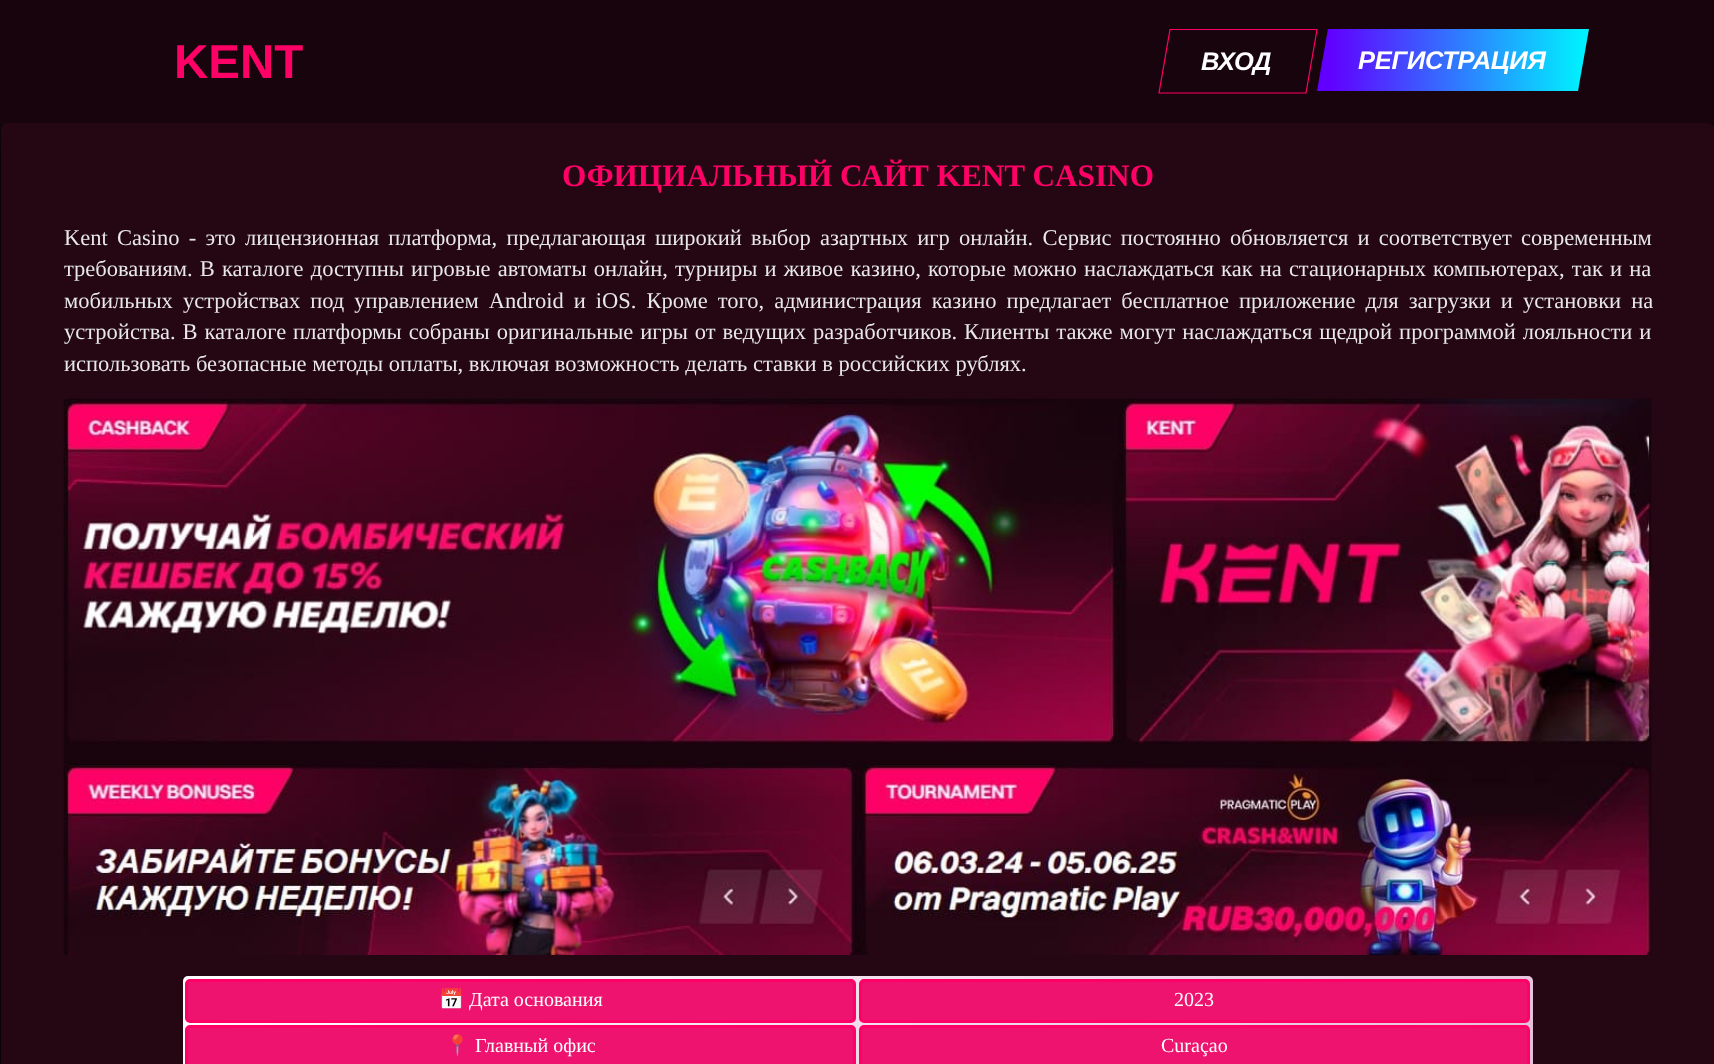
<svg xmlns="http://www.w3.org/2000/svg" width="1714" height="1064">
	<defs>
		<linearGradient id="g1" gradientUnits="userSpaceOnUse" x1="1322" y1="60" x2="1584" y2="60"><stop offset="0.03" stop-color="#6100FF" /><stop offset="0.99" stop-color="#00F0FF" /></linearGradient>
		<linearGradient id="g2" gradientUnits="userSpaceOnUse" x1="651" y1="777" x2="1064" y2="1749"><stop offset="0" stop-color="#FFFFFF" /><stop offset="1" stop-color="#D18CBE" /></linearGradient>
	</defs>
	<rect width="100%" height="100%" fill="#1C0C0E" />
	<rect x="-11" y="110" width="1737" height="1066" rx="19" fill="#000000" filter="blur(31px)" />
	<rect x="0" y="0" width="1714" height="123" fill="#18040D" />
	<text x="174" y="78" font-family="Liberation Sans" font-size="47.5" font-weight="700" fill="#FF0066">KENT</text>
	<path d="M1170 29.5H1317L1306 93H1159Z" fill="none" stroke="#FF0066" stroke-width="1.2" />
	<text x="1201" y="70" font-family="Liberation Sans" font-size="25.5" font-weight="700" font-style="italic" letter-spacing="-0.5" fill="#FFFFFF">ВХОД</text>
	<path d="M1328 29H1589L1578 91H1317Z" fill="url(#g1)" />
	<text x="1358" y="69" font-family="Liberation Sans" font-size="25.5" font-weight="700" font-style="italic" letter-spacing="-0.25" fill="#FFFFFF">РЕГИСТРАЦИЯ</text>
	<rect x="1" y="123" width="1713" height="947" rx="6" fill="#240713" />
	<text x="562" y="186" font-family="Liberation Serif" font-size="31.25" font-weight="700" fill="#FF0066">ОФИЦИАЛЬНЫЙ САЙТ KENT CASINO</text>
	<g font-family="Liberation Serif" font-size="22.5" fill="#E8E8E8">
		<text x="64" y="245" word-spacing="3.6">Kent Casino - это лицензионная платформа, предлагающая широкий выбор азартных игр онлайн. Сервис постоянно обновляется и соответствует современным</text>
		<text x="64" y="276" word-spacing="1.5">требованиям. В каталоге доступны игровые автоматы онлайн, турниры и живое казино, которые можно наслаждаться как на стационарных компьютерах, так и на</text>
		<text x="64" y="308" word-spacing="4.4">мобильных устройствах под управлением Android и iOS. Кроме того, администрация казино предлагает бесплатное приложение для загрузки и установки на</text>
		<text x="64" y="339" word-spacing="1.3">устройства. В каталоге платформы собраны оригинальные игры от ведущих разработчиков. Клиенты также могут наслаждаться щедрой программой лояльности и</text>
		<text x="64" y="371">использовать безопасные методы оплаты, включая возможность делать ставки в российских рублях.</text>
	</g>
	<image x="63" y="398" width="1589" height="557" href="assets/img1.png" />
	<rect x="183" y="976" width="1350" height="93" rx="5" fill="url(#g2)" />
	<rect x="186.5" y="980.5" width="668" height="41" rx="3.5" fill="#ED136E" stroke="#FF0066" stroke-width="3" />
	<text x="439" y="1006" font-family="Noto Color Emoji" font-size="20" fill="#FFFFFF">📅</text>
	<text x="469" y="1006" font-family="Liberation Serif" font-size="20" fill="#FFFFFF">Дата основания</text>
	<rect x="860.5" y="980.5" width="668" height="41" rx="3.5" fill="#ED136E" stroke="#FF0066" stroke-width="3" />
	<text x="1174" y="1006" font-family="Liberation Serif" font-size="20" fill="#FFFFFF">2023</text>
	<rect x="186.5" y="1026.5" width="668" height="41" rx="3.5" fill="#ED136E" stroke="#FF0066" stroke-width="3" />
	<text x="445" y="1052" font-family="Noto Color Emoji" font-size="20" fill="#FFFFFF">📍</text>
	<text x="475" y="1052" font-family="Liberation Serif" font-size="20" fill="#FFFFFF">Главный офис</text>
	<rect x="860.5" y="1026.5" width="668" height="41" rx="3.5" fill="#ED136E" stroke="#FF0066" stroke-width="3" />
	<text x="1161" y="1052" font-family="Liberation Serif" font-size="20" fill="#FFFFFF">Curaçao</text>
</svg>
